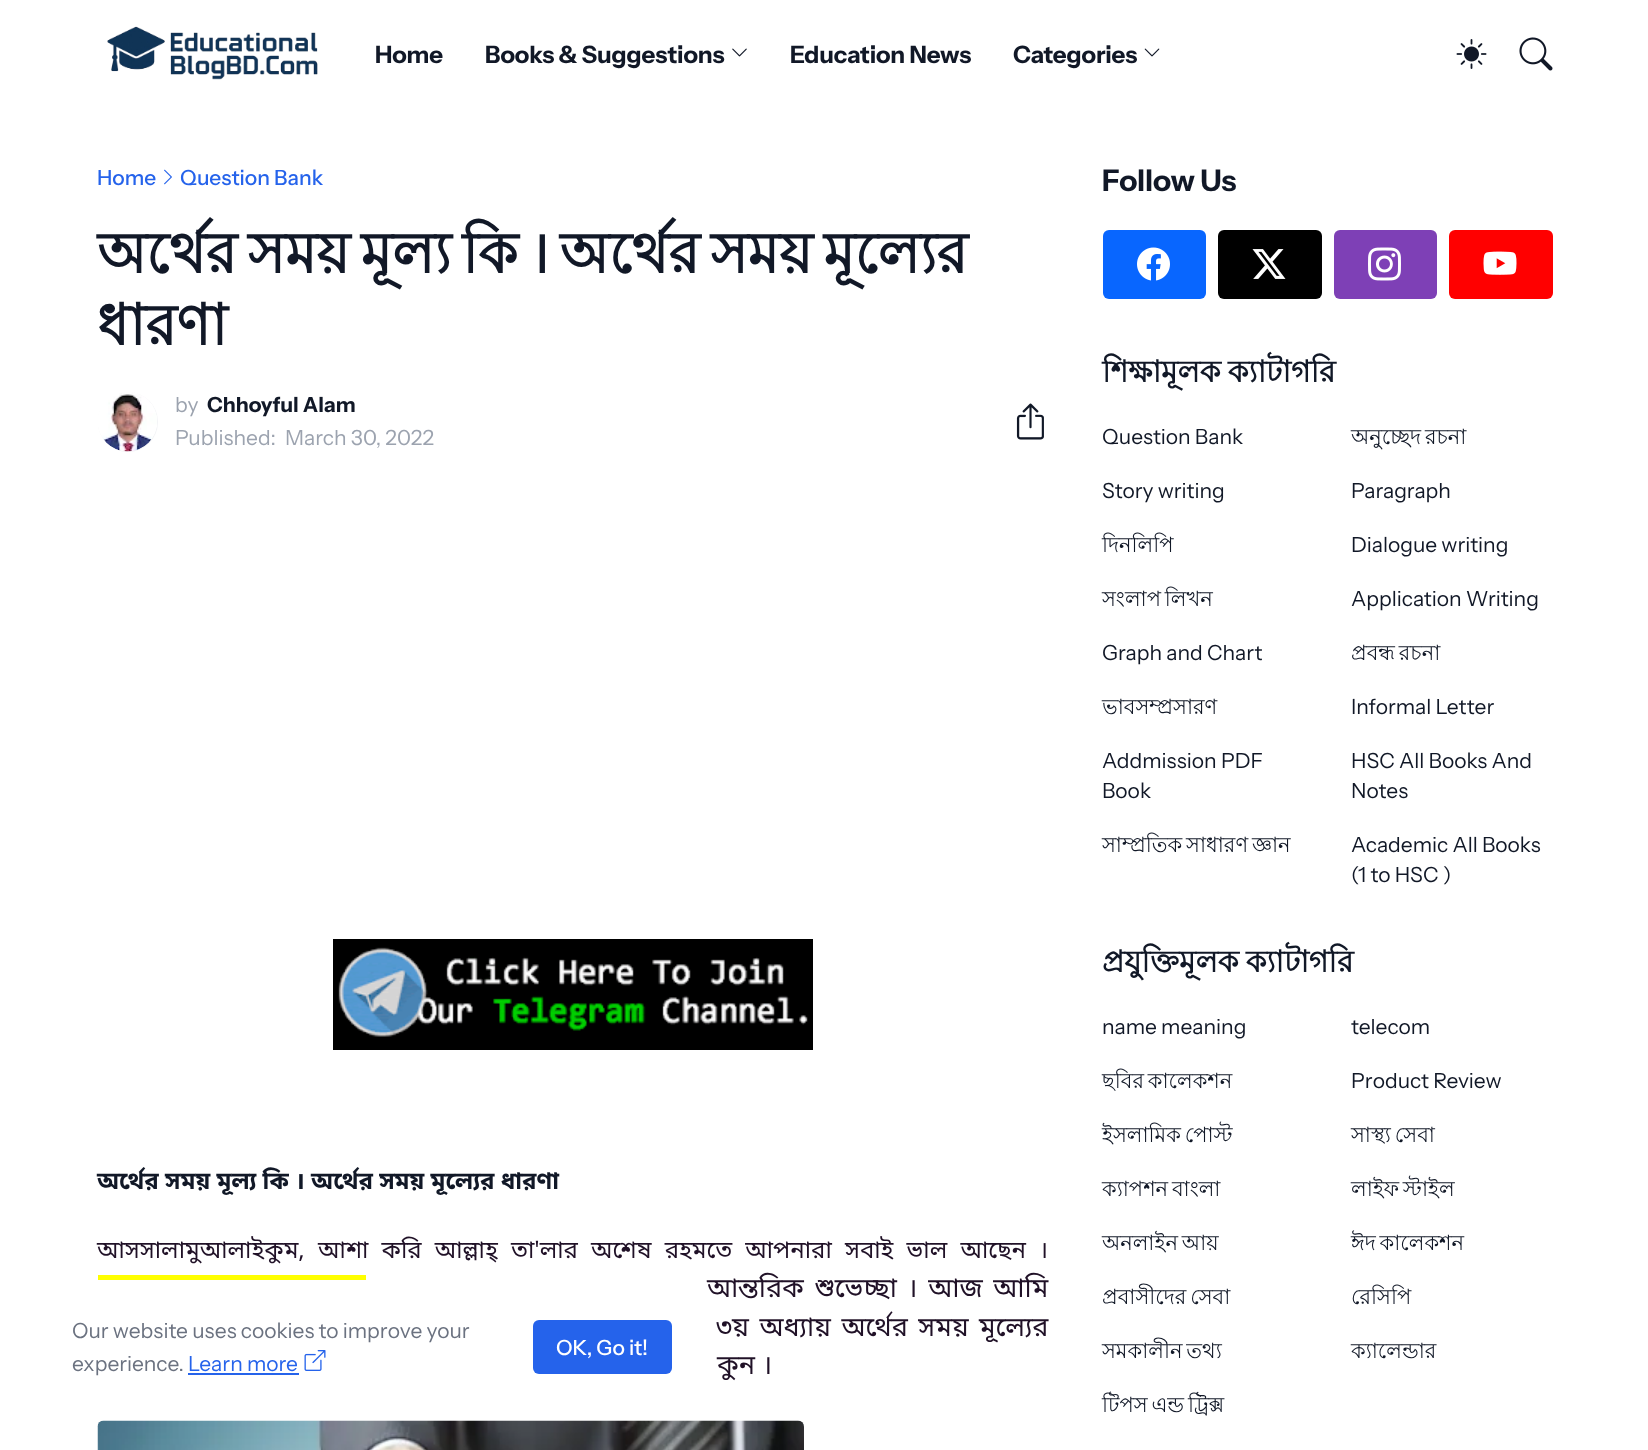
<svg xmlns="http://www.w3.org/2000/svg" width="1648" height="1450">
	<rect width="100%" height="100%" fill="#FFFFFF" />
	<image x="107" y="26" width="211" height="54" href="assets/img1.png" />
	<g font-family="Instrument Sans" font-size="24" font-weight="700" letter-spacing="-0.1" fill="#111827">
		<text x="375" y="63">Home</text>
		<text x="485" y="63">Books &amp; Suggestions</text>
	</g>
	<image x="732" y="48" width="15" height="9" href="assets/img2.png" />
	<g font-family="Instrument Sans" font-size="24" font-weight="700" letter-spacing="-0.1" fill="#111827">
		<text x="790" y="63">Education News</text>
		<text x="1013" y="63">Categories</text>
	</g>
	<image x="1144" y="48" width="16" height="9" href="assets/img3.png" />
	<image x="1456" y="39" width="31" height="30" href="assets/img4.png" />
	<image x="1519" y="37" width="34" height="34" href="assets/img5.png" />
	<text x="97" y="185" font-family="Instrument Sans" font-size="21" font-weight="500" fill="#2563EB">Home</text>
	<image x="164" y="169" width="8" height="16" href="assets/img6.png" />
	<text x="180" y="185" font-family="Instrument Sans" font-size="21" font-weight="500" fill="#2563EB">Question Bank</text>
	<g font-family="Lohit Bengali" font-size="57" font-weight="700" letter-spacing="-0.3" fill="#111827">
		<text x="97" y="273" word-spacing="-4.5">অর্থের সময় মূল্য কি । অর্থের সময় মূল্যের</text>
		<text x="97" y="345">ধারণা</text>
	</g>
	<circle cx="128" cy="422" r="30" fill="#F3F4F6" />
	<image x="98" y="392" width="59" height="60" href="assets/img7.png" />
	<text x="175" y="412" font-family="Instrument Sans" font-size="21" fill="#9CA3AF">by</text>
	<text x="207" y="412" font-family="Instrument Sans" font-size="21" font-weight="700" fill="#111827">Chhoyful Alam</text>
	<g font-family="Instrument Sans" font-size="21" fill="#9CA3AF">
		<text x="175" y="445">Published:</text>
		<text x="285" y="445">March 30, 2022</text>
	</g>
	<image x="1016" y="403" width="28" height="37" href="assets/img8.png" />
	<image x="333" y="939" width="480" height="111" href="assets/img9.png" />
	<text x="97" y="1189" font-family="Noto Sans Bengali" font-size="24" font-weight="700" fill="#111827">অর্থের সময় মূল্য কি । অর্থের সময় মূল্যের ধারণা</text>
	<text x="97" y="1258" word-spacing="6.9" font-family="Noto Sans Bengali" font-size="24" fill="#201127">আসসালামুআলাইকুম, আশা করি আল্লাহ্‌ তা'লার অশেষ রহমতে আপনারা সবাই ভাল আছেন ।</text>
	<rect x="98" y="1275" width="268" height="5" fill="#FFFF00" />
	<g font-family="Noto Sans Bengali" font-size="27" fill="#201127">
		<text x="707" y="1297" word-spacing="3.5">আন্তরিক শুভেচ্ছা । আজ আমি</text>
		<text x="716" y="1336" word-spacing="3.5">৩য় অধ্যায় অর্থের সময় মূল্যের</text>
		<text x="717" y="1374">কুন ।</text>
	</g>
	<image x="97" y="1420" width="707" height="30" href="assets/img10.png" />
	<text x="1102" y="191" font-family="Instrument Sans" font-size="30" font-weight="700" letter-spacing="-0.15" fill="#111827">Follow Us</text>
	<rect x="1103" y="230" width="103" height="69" rx="6" fill="#0866FF" />
	<image x="1137" y="247" width="33" height="34" href="assets/img11.png" />
	<rect x="1218" y="230" width="104" height="69" rx="6" fill="#000000" />
	<image x="1252" y="249" width="34" height="30" href="assets/img12.png" />
	<rect x="1334" y="230" width="103" height="69" rx="6" fill="#7E40B6" />
	<image x="1368" y="247" width="33" height="34" href="assets/img13.png" />
	<rect x="1449" y="230" width="104" height="69" rx="6" fill="#FF0000" />
	<image x="1483" y="251" width="34" height="24" href="assets/img14.png" />
	<text x="1102" y="382" word-spacing="-1" font-family="Lohit Bengali" font-size="30" font-weight="700" letter-spacing="-0.15" fill="#111827">শিক্ষামূলক ক্যাটাগরি</text>
	<text x="1102" y="444" font-family="Instrument Sans" font-size="21" fill="#111827">Question Bank</text>
	<text x="1351" y="444" word-spacing="-2" font-family="Lohit Bengali" font-size="21" fill="#111827">অনুচ্ছেদ রচনা</text>
	<g font-family="Instrument Sans" font-size="21" fill="#111827">
		<text x="1102" y="498">Story writing</text>
		<text x="1351" y="498">Paragraph</text>
	</g>
	<text x="1102" y="552" font-family="Lohit Bengali" font-size="21" fill="#111827">দিনলিপি</text>
	<text x="1351" y="552" font-family="Instrument Sans" font-size="21" fill="#111827">Dialogue writing</text>
	<text x="1102" y="606" word-spacing="-2" font-family="Lohit Bengali" font-size="21" fill="#111827">সংলাপ লিখন</text>
	<g font-family="Instrument Sans" font-size="21" fill="#111827">
		<text x="1351" y="606">Application Writing</text>
		<text x="1102" y="660">Graph and Chart</text>
	</g>
	<g font-family="Lohit Bengali" font-size="21" fill="#111827">
		<text x="1351" y="660" word-spacing="-2">প্রবন্ধ রচনা</text>
		<text x="1102" y="714">ভাবসম্প্রসারণ</text>
	</g>
	<g font-family="Instrument Sans" font-size="21" fill="#111827">
		<text x="1351" y="714">Informal Letter</text>
		<text x="1102" y="768">Addmission PDF</text>
		<text x="1102" y="798">Book</text>
		<text x="1351" y="768">HSC All Books And</text>
		<text x="1351" y="798">Notes</text>
	</g>
	<text x="1102" y="852" word-spacing="-2" font-family="Lohit Bengali" font-size="21" fill="#111827">সাম্প্রতিক সাধারণ জ্ঞান</text>
	<g font-family="Instrument Sans" font-size="21" fill="#111827">
		<text x="1351" y="852">Academic All Books</text>
		<text x="1351" y="882">(1 to HSC )</text>
	</g>
	<text x="1102" y="972" word-spacing="-1" font-family="Lohit Bengali" font-size="30" font-weight="700" letter-spacing="-0.15" fill="#111827">প্রযুক্তিমূলক ক্যাটাগরি</text>
	<g font-family="Instrument Sans" font-size="21" fill="#111827">
		<text x="1102" y="1034">name meaning</text>
		<text x="1351" y="1034">telecom</text>
	</g>
	<text x="1102" y="1088" word-spacing="-2" font-family="Lohit Bengali" font-size="21" fill="#111827">ছবির কালেকশন</text>
	<text x="1351" y="1088" font-family="Instrument Sans" font-size="21" fill="#111827">Product Review</text>
	<g font-family="Lohit Bengali" font-size="21" fill="#111827">
		<text x="1102" y="1142" word-spacing="-2">ইসলামিক পোস্ট</text>
		<text x="1351" y="1142" word-spacing="-2">সাস্থ্য সেবা</text>
		<text x="1102" y="1196" word-spacing="-2">ক্যাপশন বাংলা</text>
		<text x="1351" y="1196" word-spacing="-2">লাইফ স্টাইল</text>
		<text x="1102" y="1250" word-spacing="-2">অনলাইন আয়</text>
		<text x="1351" y="1250" word-spacing="-2">ঈদ কালেকশন</text>
		<text x="1102" y="1304" word-spacing="-2">প্রবাসীদের সেবা</text>
		<text x="1351" y="1304">রেসিপি</text>
		<text x="1102" y="1358" word-spacing="-2">সমকালীন তথ্য</text>
		<text x="1351" y="1358">ক্যালেন্ডার</text>
		<text x="1102" y="1412" word-spacing="-2">টিপস এন্ড ট্রিক্স</text>
	</g>
	<rect x="36" y="1280" width="672" height="135" rx="6" fill="#FFFFFF" />
	<g font-family="Instrument Sans" font-size="21" fill="#6B7280">
		<text x="72" y="1338">Our website uses cookies to improve your</text>
		<text x="72" y="1371">experience.</text>
	</g>
	<text x="188" y="1371" font-family="Instrument Sans" font-size="21" fill="#2563EB">Learn more</text>
	<rect x="188" y="1373" width="111" height="2" fill="#2563EB" />
	<image x="304" y="1350" width="22" height="21" href="assets/img15.png" />
	<rect x="533" y="1320" width="139" height="54" rx="6" fill="#2563EB" />
	<text x="556" y="1355" font-family="Instrument Sans" font-size="21" font-weight="500" fill="#FFFFFF">OK, Go it!</text>
</svg>
